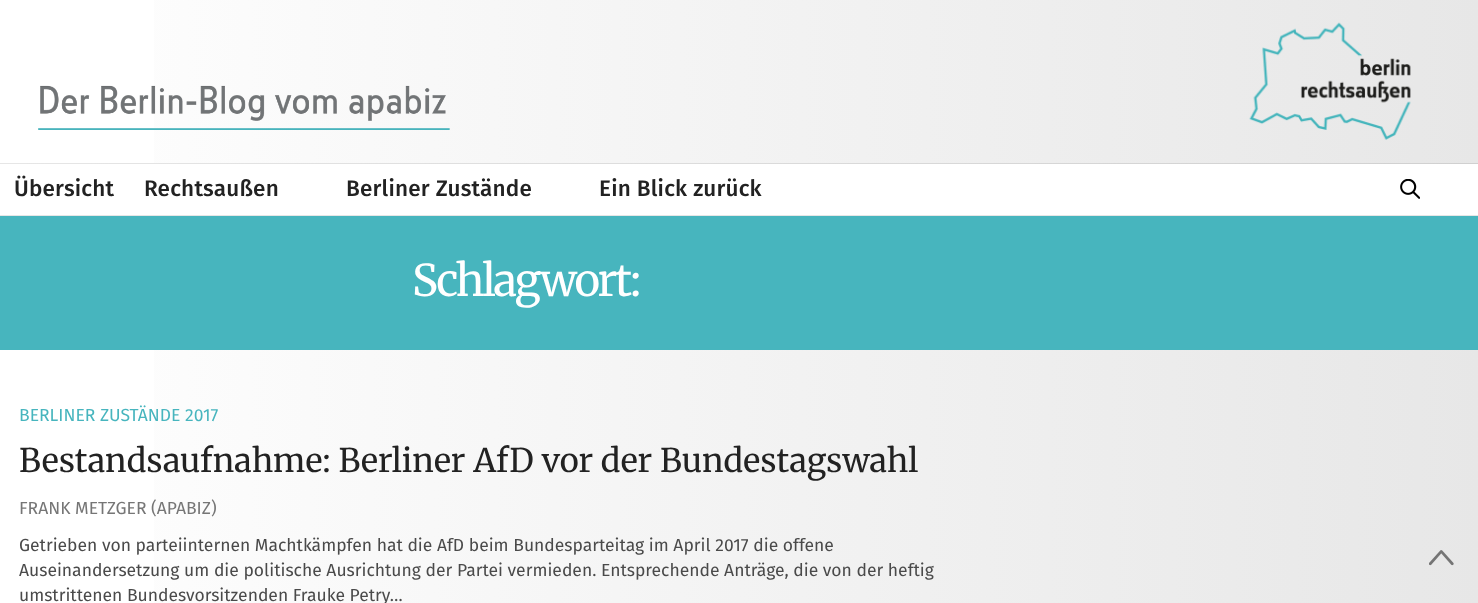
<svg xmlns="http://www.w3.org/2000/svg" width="1478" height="603">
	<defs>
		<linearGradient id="g1" gradientUnits="userSpaceOnUse" x1="0" y1="81" x2="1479" y2="81"><stop offset="0" stop-color="#FFFFFF" /><stop offset="1" stop-color="#E7E7E7" /></linearGradient>
		<linearGradient id="g2" gradientUnits="userSpaceOnUse" x1="0" y1="81" x2="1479" y2="81"><stop offset="0" stop-color="#E6E6E6" /><stop offset="1" stop-color="#D0D0D0" /></linearGradient>
		<linearGradient id="g3" gradientUnits="userSpaceOnUse" x1="0" y1="450" x2="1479" y2="450"><stop offset="0" stop-color="#FFFFFF" /><stop offset="1" stop-color="#E7E7E7" /></linearGradient>
	</defs>
	<rect width="100%" height="100%" fill="#FFFFFF" />
	<rect x="154" y="0" width="1324" height="163" fill="url(#g1)" />
	<rect x="0" y="163" width="1478" height="1" fill="url(#g2)" />
	<image x="38" y="85" width="412" height="45" href="assets/img1.png" />
	<image x="1249" y="22" width="162" height="118" href="assets/img2.png" />
	<rect x="0" y="215" width="1478" height="1" fill="#E6E6E6" />
	<g font-family="Fira Sans" font-size="22.5" font-weight="500" letter-spacing="0.2" fill="#222222">
		<text x="14" y="196">Übersicht</text>
		<text x="144" y="196">Rechtsaußen</text>
		<text x="346" y="196">Berliner Zustände</text>
		<text x="599" y="196">Ein Blick zurück</text>
	</g>
	<image x="1400" y="179" width="20" height="20" href="assets/img3.png" />
	<rect x="154" y="350" width="1324" height="253" fill="url(#g3)" />
	<rect x="0" y="216" width="1478" height="134" fill="#47B5BE" />
	<text x="412" y="296" font-family="Merriweather" font-size="43.75" letter-spacing="-2.25" fill="#FFFFFF">Schlagwort:</text>
	<text x="19" y="421" font-family="Fira Sans" font-size="17.5" fill="#47B5BE">BERLINER ZUSTÄNDE 2017</text>
	<text x="19" y="472" font-family="Merriweather" font-size="32.5" fill="#222222">Bestandsaufnahme: Berliner AfD vor der Bundestagswahl</text>
	<text x="19" y="514" font-family="Fira Sans" font-size="17.5" fill="#767676">FRANK METZGER (APABIZ)</text>
	<g font-family="Fira Sans" font-size="17.5" fill="#4A4A4A">
		<text x="19" y="551">Getrieben von parteiinternen Machtkämpfen hat die AfD beim Bundesparteitag im April 2017 die offene</text>
		<text x="19" y="576">Auseinandersetzung um die politische Ausrichtung der Partei vermieden. Entsprechende Anträge, die von der heftig</text>
		<text x="19" y="601">umstrittenen Bundesvorsitzenden Frauke Petry…</text>
	</g>
	<image x="1429" y="550" width="25" height="16" href="assets/img4.png" />
</svg>
